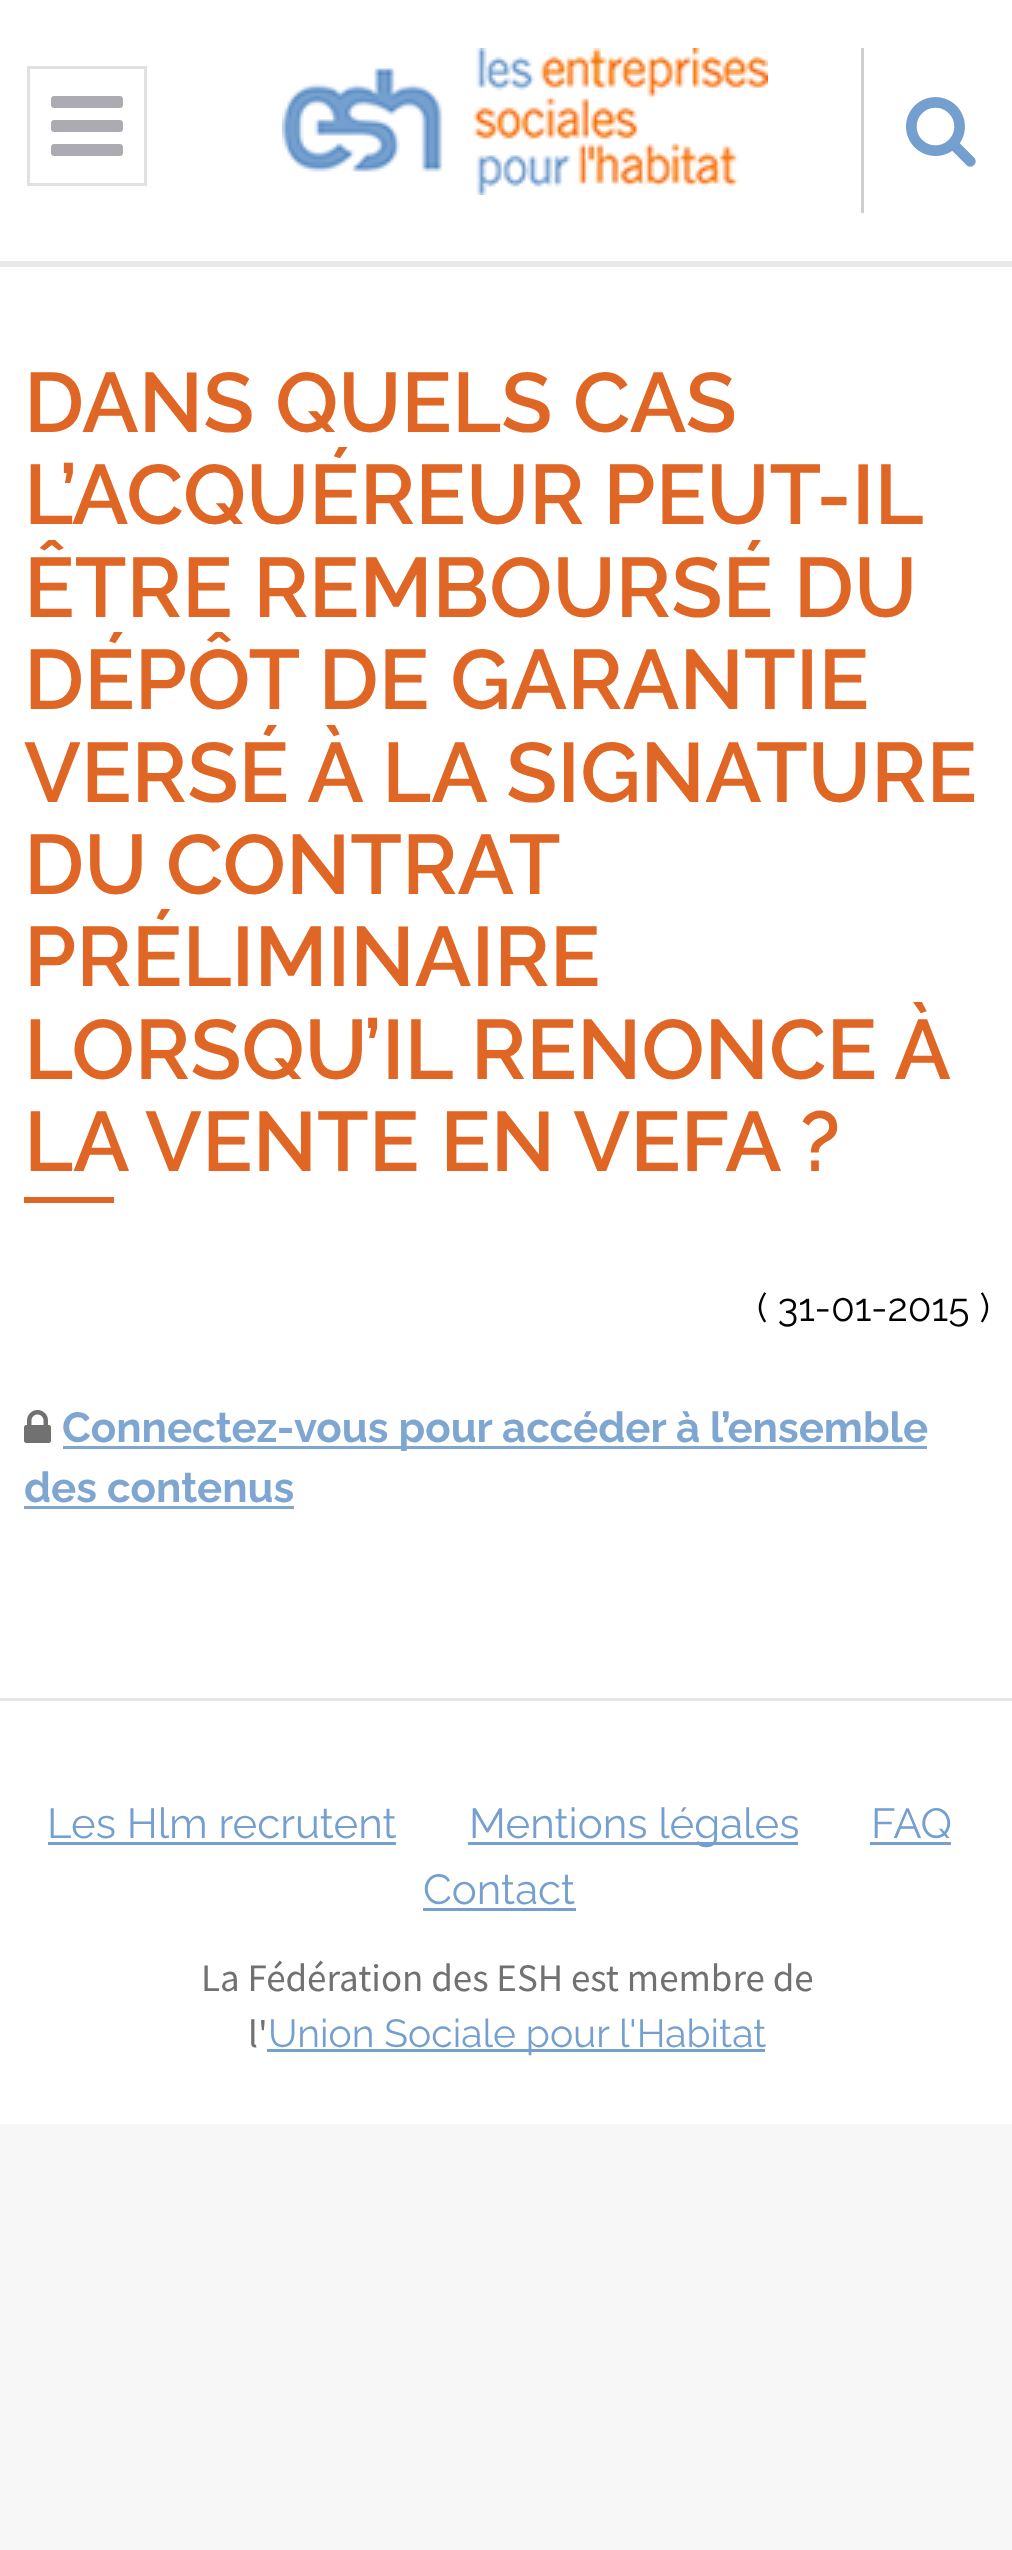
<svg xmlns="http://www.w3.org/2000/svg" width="1012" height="2550">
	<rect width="100%" height="100%" fill="#F7F7F7" />
	<rect x="0" y="0" width="1012" height="2124" fill="#FFFFFF" />
	<rect x="0" y="261" width="1012" height="6" fill="#E9E9E9" />
	<rect x="28.5" y="67.5" width="117" height="117" fill="none" stroke="#E1E1E1" stroke-width="3" />
	<image x="51" y="96" width="72" height="60" href="assets/img1.png" />
	<image x="282" y="48" width="486" height="147" href="assets/img2.png" />
	<rect x="861" y="48" width="3" height="165" fill="#CFCFCF" />
	<image x="906" y="97" width="70" height="70" href="assets/img3.png" />
	<g font-family="Raleway" font-size="84" font-weight="600" fill="#E06625">
		<text x="24" y="432">DANS QUELS CAS</text>
		<text x="24" y="524" word-spacing="-2">L’ACQUÉREUR PEUT-IL</text>
		<text x="24" y="617">ÊTRE REMBOURSÉ DU</text>
		<text x="24" y="709">DÉPÔT DE GARANTIE</text>
		<text x="24" y="802">VERSÉ À LA SIGNATURE</text>
		<text x="24" y="894" word-spacing="-2">DU CONTRAT</text>
		<text x="24" y="986">PRÉLIMINAIRE</text>
		<text x="24" y="1079" word-spacing="-1">LORSQU’IL RENONCE À</text>
		<text x="24" y="1171">LA VENTE EN VEFA ?</text>
	</g>
	<rect x="24" y="1197" width="90" height="6" fill="#E06625" />
	<text x="757" y="1321" font-family="Raleway" font-size="39" fill="#000000">( 31-01-2015 )</text>
	<image x="24" y="1410" width="27" height="33" href="assets/img4.png" />
	<rect x="63" y="1446" width="864" height="3" fill="#7FA6D1" />
	<g font-family="Raleway" font-size="42" font-weight="700" fill="#7FA6D1">
		<text x="62" y="1442">Connectez-vous pour accéder à l’ensemble</text>
		<text x="24" y="1502">des contenus</text>
	</g>
	<rect x="24" y="1506" width="270" height="3" fill="#7FA6D1" />
	<rect x="0" y="1698" width="1012" height="3" fill="#E3E7EA" />
	<text x="47" y="1838" font-family="Raleway" font-size="42" fill="#749FCE">Les Hlm recrutent</text>
	<rect x="48" y="1842" width="348" height="3" fill="#749FCE" />
	<rect x="468" y="1842" width="330" height="3" fill="#749FCE" />
	<g font-family="Raleway" font-size="42" fill="#749FCE">
		<text x="469" y="1838">Mentions légales</text>
		<text x="871" y="1838">FAQ</text>
	</g>
	<rect x="870" y="1842" width="81" height="3" fill="#749FCE" />
	<text x="423" y="1904" font-family="Raleway" font-size="42" fill="#749FCE">Contact</text>
	<rect x="423" y="1908" width="153" height="3" fill="#749FCE" />
	<g font-family="Source Sans Pro" font-size="39" fill="#717171">
		<text x="201" y="1991">La Fédération des ESH est membre de</text>
		<text x="248" y="2047">l'</text>
	</g>
	<rect x="267" y="2049" width="498" height="3" fill="#749FCE" />
	<text x="268" y="2047" font-family="Raleway" font-size="39" fill="#749FCE">Union Sociale pour l'Habitat</text>
</svg>
